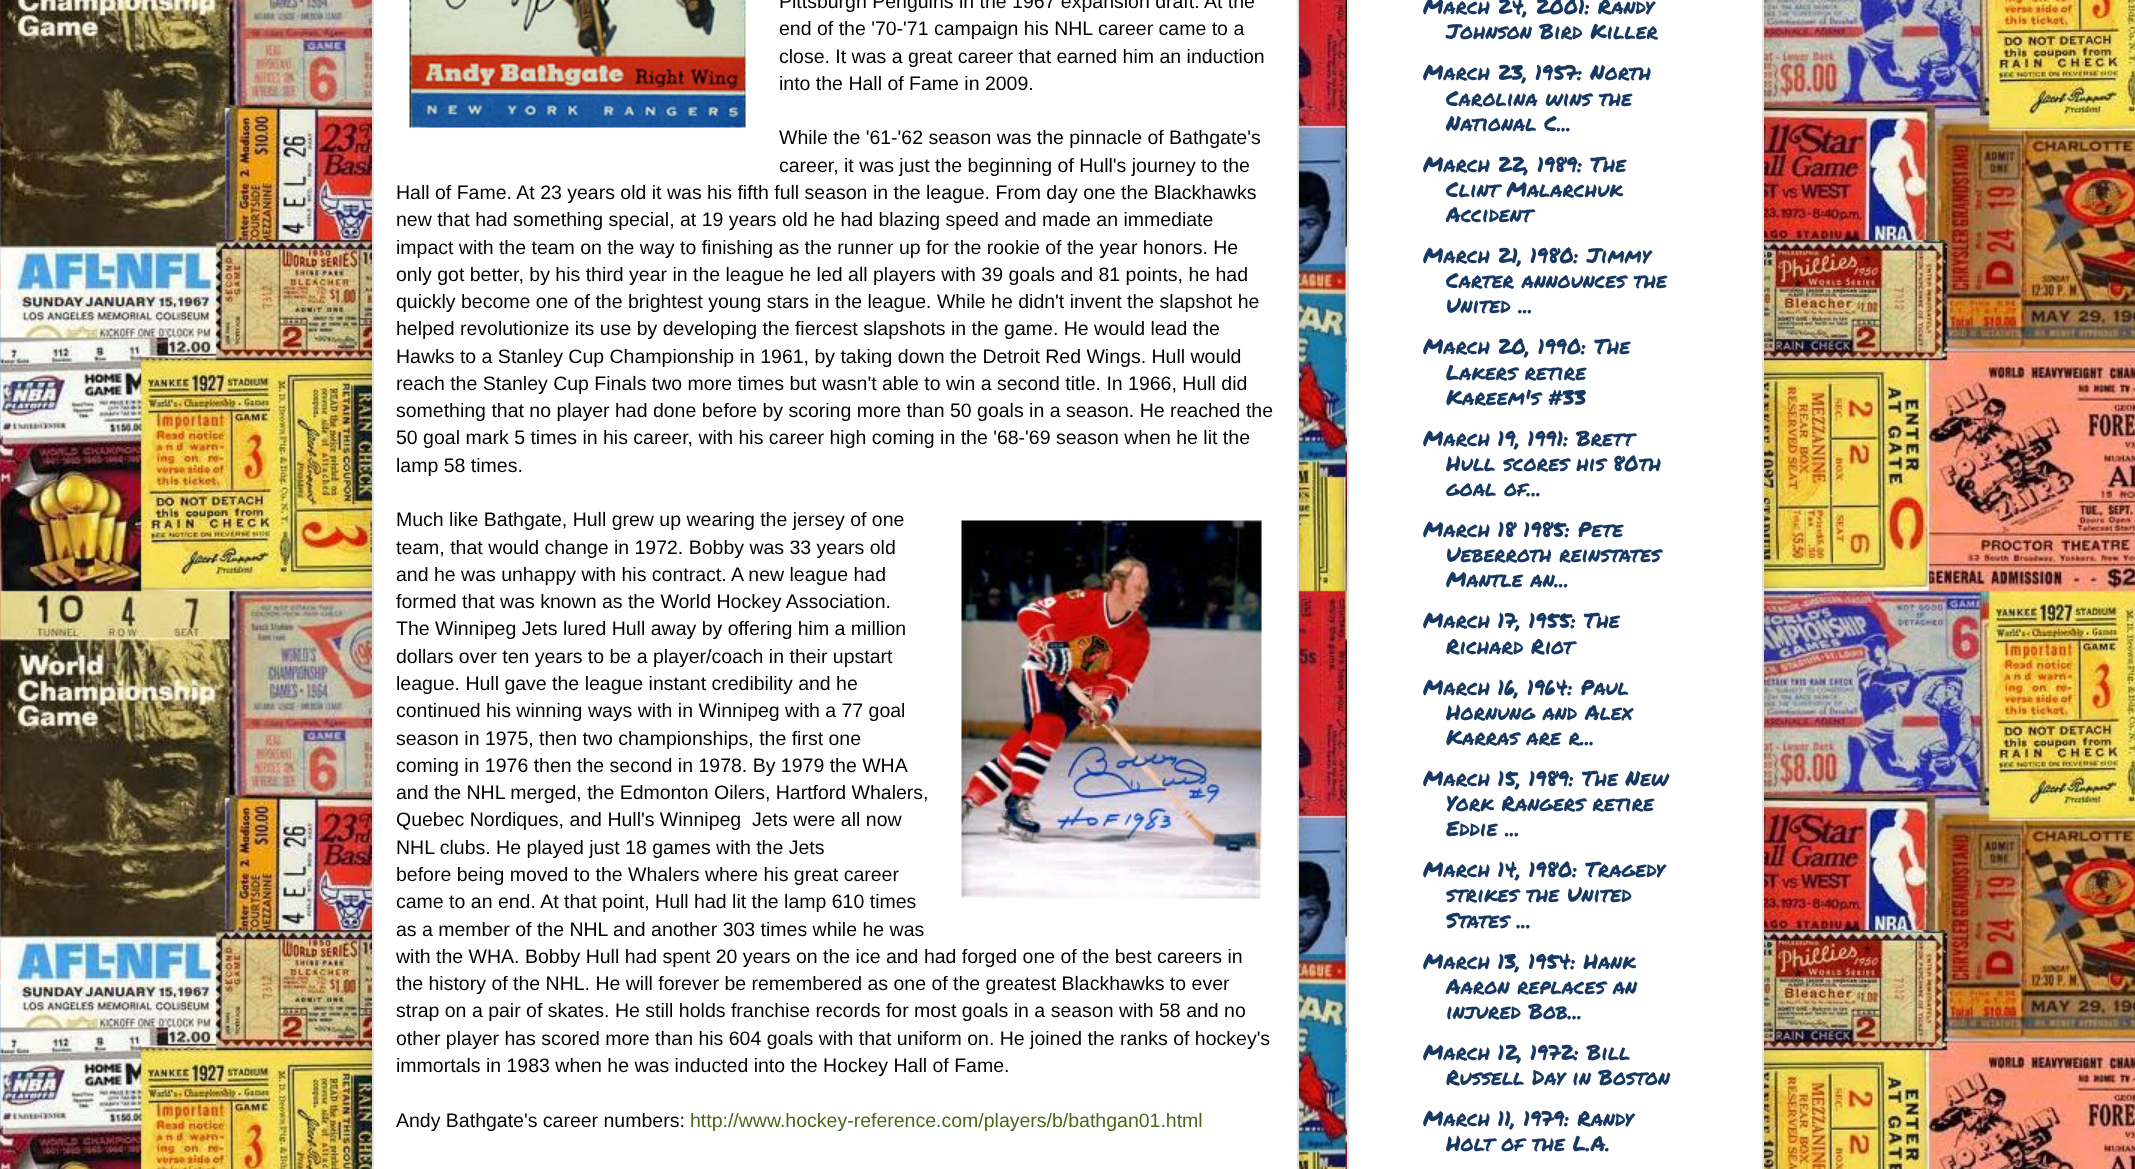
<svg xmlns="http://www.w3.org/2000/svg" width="2135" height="1169">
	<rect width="100%" height="100%" fill="#FFFFFF" />
	<image x="0" y="0" width="2135" height="1169" href="assets/img1.png" />
	<rect x="372" y="-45" width="927" height="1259" fill="#000000" fill-opacity="0.2" filter="blur(15px)" />
	<rect x="373" y="-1" width="925" height="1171" fill="#FFFFFF" stroke="#E1E1E1" stroke-width="2" />
	<image x="409" y="0" width="337" height="128" href="assets/img2.png" />
	<g font-family="Liberation Sans" font-size="19.5" fill="#000000">
		<text x="779" y="8">Pittsburgh Penguins in the 1967 expansion draft. At the</text>
		<text x="779" y="35">end of the '70-'71 campaign his NHL career came to a</text>
		<text x="779" y="63">close. It was a great career that earned him an induction</text>
		<text x="779" y="90">into the Hall of Fame in 2009.</text>
		<text x="779" y="144">While the '61-'62 season was the pinnacle of Bathgate's</text>
		<text x="779" y="172">career, it was just the beginning of Hull's journey to the</text>
		<text x="396" y="199">Hall of Fame. At 23 years old it was his fifth full season in the league. From day one the Blackhawks</text>
		<text x="396" y="226">new that had something special, at 19 years old he had blazing speed and made an immediate</text>
		<text x="396" y="254">impact with the team on the way to finishing as the runner up for the rookie of the year honors. He</text>
		<text x="396" y="281">only got better, by his third year in the league he led all players with 39 goals and 81 points, he had</text>
		<text x="396" y="308">quickly become one of the brightest young stars in the league. While he didn't invent the slapshot he</text>
		<text x="396" y="335">helped revolutionize its use by developing the fiercest slapshots in the game. He would lead the</text>
		<text x="396" y="363">Hawks to a Stanley Cup Championship in 1961, by taking down the Detroit Red Wings. Hull would</text>
		<text x="396" y="390">reach the Stanley Cup Finals two more times but wasn't able to win a second title. In 1966, Hull did</text>
		<text x="396" y="417">something that no player had done before by scoring more than 50 goals in a season. He reached the</text>
		<text x="396" y="444">50 goal mark 5 times in his career, with his career high coming in the '68-'69 season when he lit the</text>
		<text x="396" y="472">lamp 58 times.</text>
		<text x="396" y="526">Much like Bathgate, Hull grew up wearing the jersey of one</text>
	</g>
	<image x="961" y="520" width="301" height="379" href="assets/img3.png" />
	<g font-family="Liberation Sans" font-size="19.5" fill="#000000">
		<text x="396" y="554">team, that would change in 1972. Bobby was 33 years old</text>
		<text x="396" y="581">and he was unhappy with his contract. A new league had</text>
		<text x="396" y="608">formed that was known as the World Hockey Association.</text>
		<text x="396" y="635">The Winnipeg Jets lured Hull away by offering him a million</text>
		<text x="396" y="663">dollars over ten years to be a player/coach in their upstart</text>
		<text x="396" y="690">league. Hull gave the league instant credibility and he</text>
		<text x="396" y="717">continued his winning ways with in Winnipeg with a 77 goal</text>
		<text x="396" y="745">season in 1975, then two championships, the first one</text>
		<text x="396" y="772">coming in 1976 then the second in 1978. By 1979 the WHA</text>
		<text x="396" y="799">and the NHL merged, the Edmonton Oilers, Hartford Whalers,</text>
		<text x="396" y="826" xml:space="preserve">Quebec Nordiques, and Hull's Winnipeg  Jets were all now</text>
		<text x="396" y="854">NHL clubs. He played just 18 games with the Jets</text>
		<text x="396" y="881">before being moved to the Whalers where his great career</text>
		<text x="396" y="908">came to an end. At that point, Hull had lit the lamp 610 times</text>
		<text x="396" y="936">as a member of the NHL and another 303 times while he was</text>
		<text x="396" y="963">with the WHA. Bobby Hull had spent 20 years on the ice and had forged one of the best careers in</text>
		<text x="396" y="990">the history of the NHL. He will forever be remembered as one of the greatest Blackhawks to ever</text>
		<text x="396" y="1017">strap on a pair of skates. He still holds franchise records for most goals in a season with 58 and no</text>
		<text x="396" y="1045">other player has scored more than his 604 goals with that uniform on. He joined the ranks of hockey's</text>
		<text x="396" y="1072">immortals in 1983 when he was inducted into the Hockey Hall of Fame.</text>
		<text x="396" y="1127">Andy Bathgate's career numbers:</text>
	</g>
	<text x="690" y="1127" font-family="Liberation Sans" font-size="19.5" fill="#4A6719">http://www.hockey-reference.com/players/b/bathgan01.html</text>
	<rect x="1347" y="-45" width="417" height="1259" fill="#000000" fill-opacity="0.2" filter="blur(15px)" />
	<rect x="1348" y="-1" width="415" height="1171" fill="#FFFFFF" stroke="#E2E2E2" stroke-width="2" />
	<g font-family="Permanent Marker" font-size="21" fill="#183963">
		<text x="1423" y="14">March 24, 2001: Randy</text>
		<text x="1446" y="39">Johnson Bird Killer</text>
		<text x="1423" y="80">March 23, 1957: North</text>
		<text x="1446" y="106">Carolina wins the</text>
		<text x="1446" y="131">National C...</text>
		<text x="1423" y="172">March 22, 1989: The</text>
		<text x="1446" y="197">Clint Malarchuk</text>
		<text x="1446" y="222">Accident</text>
		<text x="1423" y="263">March 21, 1980: Jimmy</text>
		<text x="1446" y="288">Carter announces the</text>
		<text x="1446" y="313">United ...</text>
		<text x="1423" y="354">March 20, 1990: The</text>
		<text x="1446" y="380">Lakers retire</text>
		<text x="1446" y="405">Kareem's #33</text>
		<text x="1423" y="446">March 19, 1991: Brett</text>
		<text x="1446" y="471">Hull scores his 80th</text>
		<text x="1446" y="496">goal of...</text>
		<text x="1423" y="537">March 18 1985: Pete</text>
		<text x="1446" y="562">Ueberroth reinstates</text>
		<text x="1446" y="587">Mantle an...</text>
		<text x="1423" y="628">March 17, 1955: The</text>
		<text x="1446" y="654">Richard Riot</text>
		<text x="1423" y="695">March 16, 1964: Paul</text>
		<text x="1446" y="720">Hornung and Alex</text>
		<text x="1446" y="745">Karras are r...</text>
		<text x="1423" y="786">March 15, 1989: The New</text>
		<text x="1446" y="811">York Rangers retire</text>
		<text x="1446" y="836">Eddie ...</text>
		<text x="1423" y="877">March 14, 1980: Tragedy</text>
		<text x="1446" y="902">strikes the United</text>
		<text x="1446" y="928">States ...</text>
		<text x="1423" y="969">March 13, 1954: Hank</text>
		<text x="1446" y="994">Aaron replaces an</text>
		<text x="1446" y="1019">injured Bob...</text>
		<text x="1423" y="1060">March 12, 1972: Bill</text>
		<text x="1446" y="1085">Russell Day in Boston</text>
		<text x="1423" y="1126">March 11, 1979: Randy</text>
		<text x="1446" y="1151">Holt of the L.A.</text>
	</g>
</svg>
